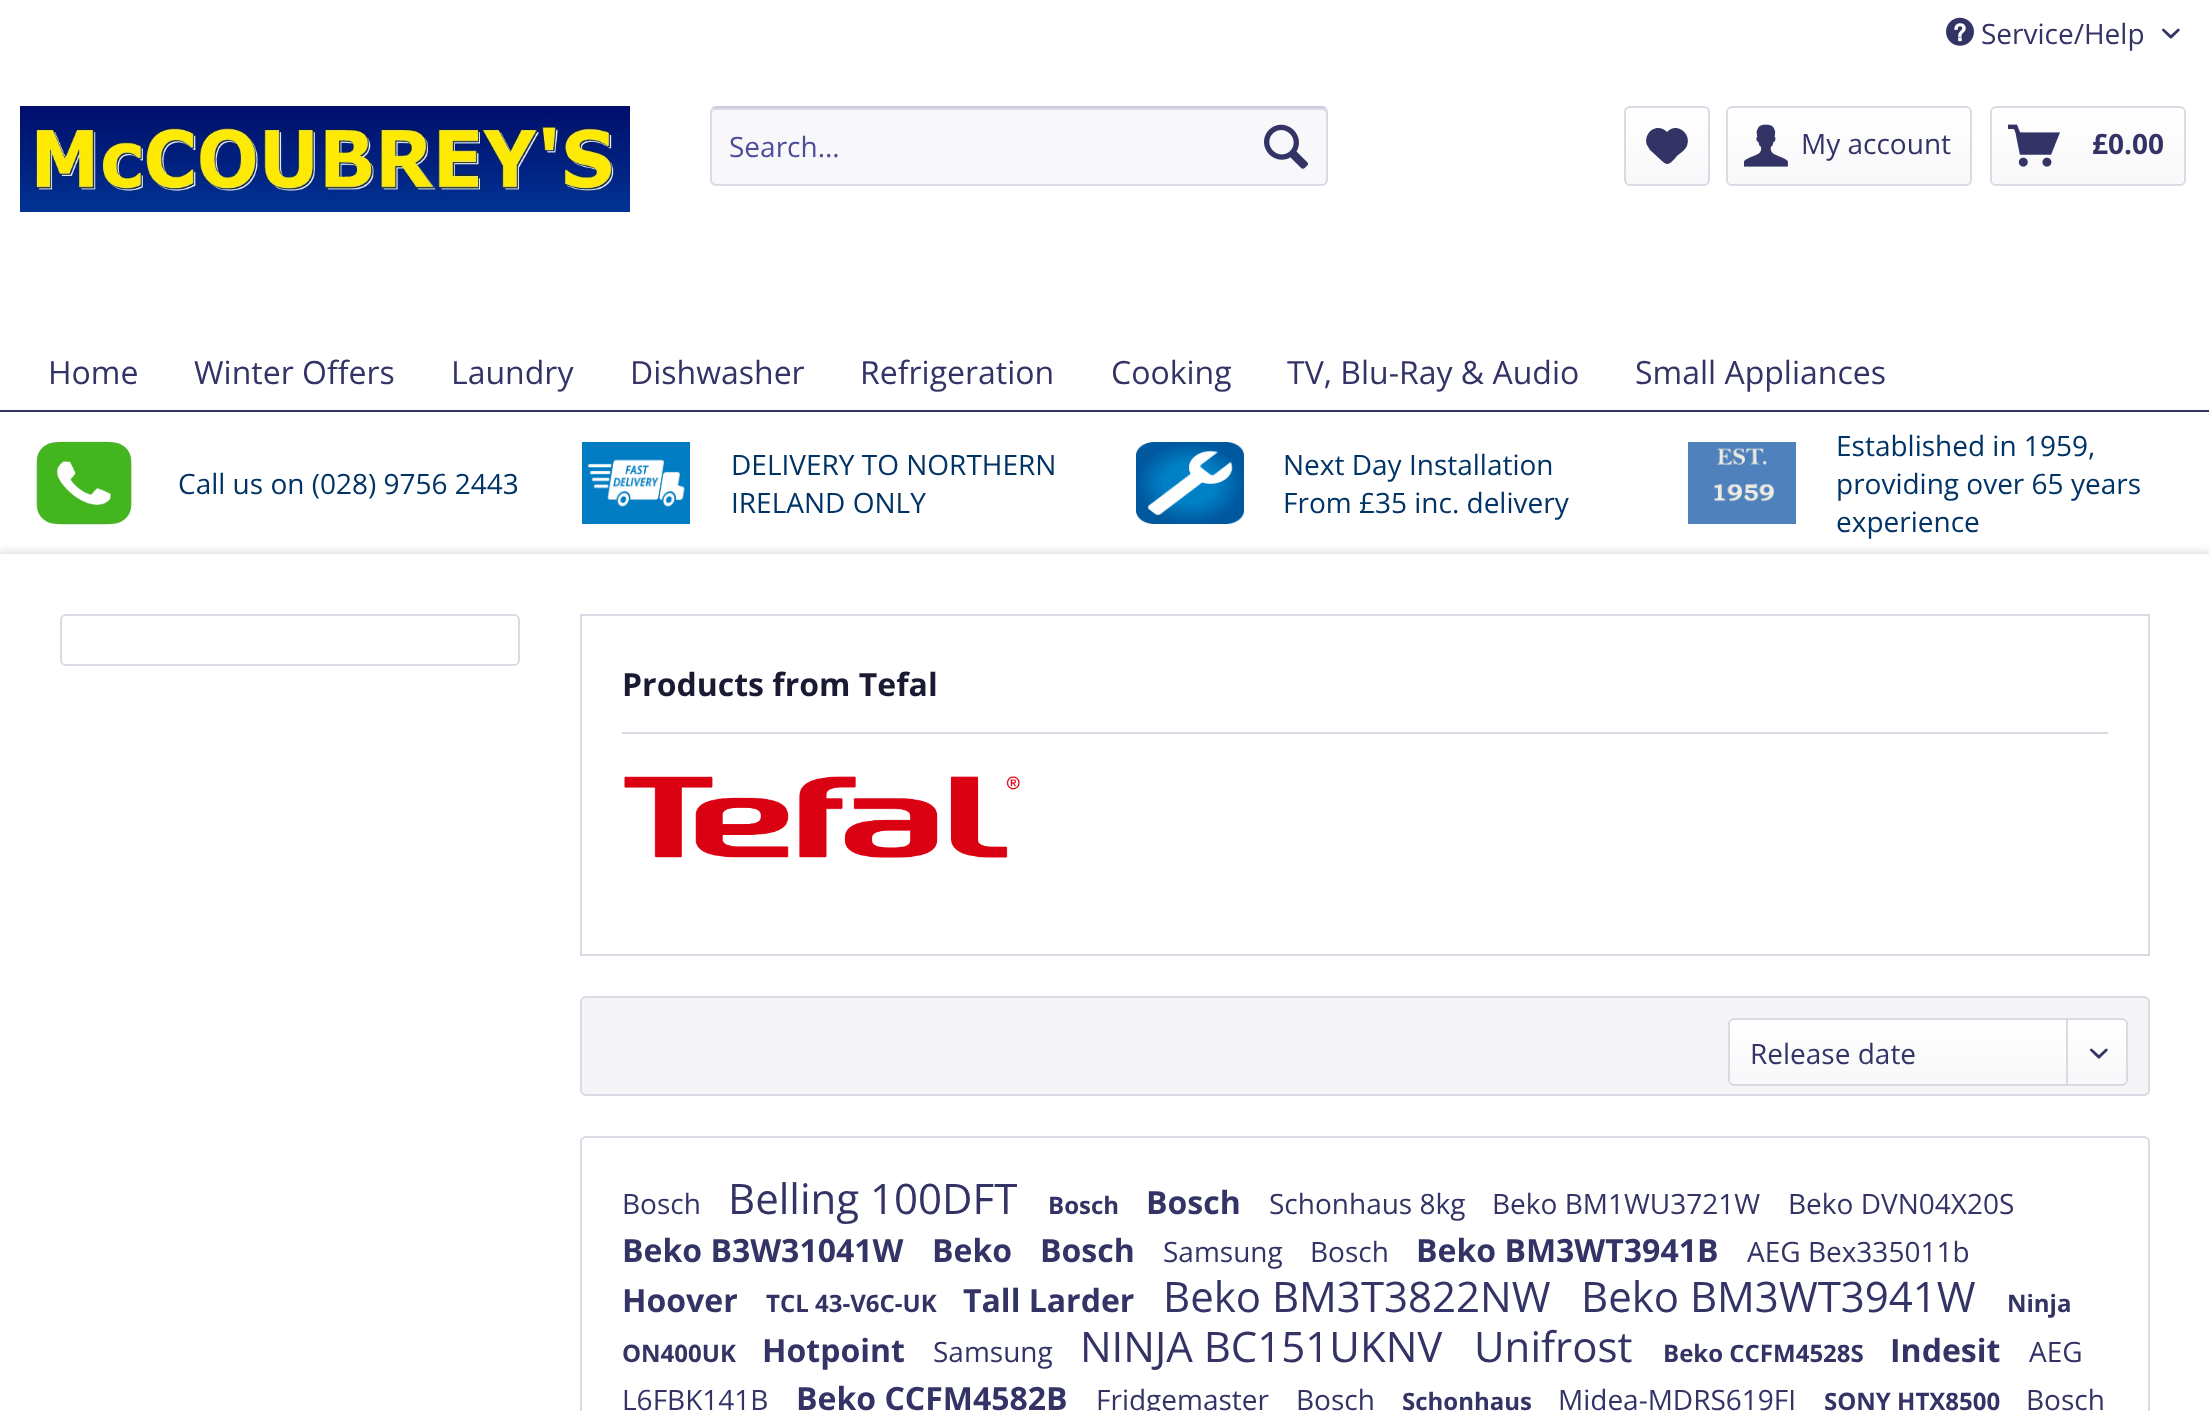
<svg xmlns="http://www.w3.org/2000/svg" width="2209" height="1411">
	<defs>
		<linearGradient id="g1" gradientUnits="userSpaceOnUse" x1="1667" y1="108" x2="1667" y2="184"><stop offset="0" stop-color="#FFFFFF" /><stop offset="1" stop-color="#F8F8FA" /></linearGradient>
		<linearGradient id="g2" gradientUnits="userSpaceOnUse" x1="1849" y1="108" x2="1849" y2="184"><stop offset="0" stop-color="#FFFFFF" /><stop offset="1" stop-color="#F8F8FA" /></linearGradient>
		<linearGradient id="g3" gradientUnits="userSpaceOnUse" x1="2088" y1="108" x2="2088" y2="184"><stop offset="0" stop-color="#FFFFFF" /><stop offset="1" stop-color="#F8F8FA" /></linearGradient>
		<linearGradient id="g4" gradientUnits="userSpaceOnUse" x1="1928" y1="1020" x2="1928" y2="1084"><stop offset="0" stop-color="#FFFFFF" /><stop offset="1" stop-color="#F8F8FA" /></linearGradient>
	</defs>
	<rect width="100%" height="100%" fill="#FFFFFF" />
	<image x="1946" y="17" width="28" height="29" href="assets/img1.png" />
	<text x="1981" y="44" font-family="Open Sans" font-size="28" fill="#333366">Service/Help</text>
	<image x="2162" y="28" width="18" height="11" href="assets/img2.png" />
	<image x="20" y="106" width="610" height="106" href="assets/img3.png" />
	<rect x="710" y="106" width="618" height="80" rx="6" fill="#F8F8FA" />
	<path d="M716 110H1322C1324 110 1326 112 1326 114C1326 111 1326 108 1322 108H714L713 110C712 111 712 113 712 114C712 112 714 110 716 110Z" fill="#DADAE5" />
	<path d="M712.5 108.5C713.5 107.5 714.5 107 716 107H1322C1323.5 107 1324.5 107.5 1325.5 108.5" fill="none" stroke="#CBCBDB" stroke-width="2" />
	<path d="M1325.5 108.5C1326.5 109.5 1327 110.5 1327 112V180C1327 181.5 1326.5 182.5 1325.5 183.5C1324.5 184.5 1323.5 185 1322 185H716C714.5 185 713.5 184.5 712.5 183.5C711.5 182.5 711 181.5 711 180V112C711 110.5 711.5 109.5 712.5 108.5" fill="none" stroke="#DADAE5" stroke-width="2" />
	<text x="729" y="157" font-family="Open Sans" font-size="28" fill="#4D4D99">Search...</text>
	<image x="1264" y="124" width="44" height="45" href="assets/img4.png" />
	<rect x="1626" y="108" width="82" height="76" rx="4" fill="url(#g1)" />
	<rect x="1625" y="107" width="84" height="78" rx="5" fill="none" stroke="#DADAE5" stroke-width="2" />
	<path d="M1658 128C1650 128 1644 137 1647 145L1650 150L1662 161C1669 168 1672 161 1678 155C1681 153 1685 150 1687 146C1692 133 1676 122 1667 132C1665 130 1662 128 1658 128Z" fill="#333366" />
	<rect x="1728" y="108" width="242" height="76" rx="4" fill="url(#g2)" />
	<rect x="1727" y="107" width="244" height="78" rx="5" fill="none" stroke="#DADAE5" stroke-width="2" />
	<image x="1744" y="124" width="44" height="43" href="assets/img5.png" />
	<text x="1801" y="154" font-family="Open Sans" font-size="28" fill="#333366">My account</text>
	<rect x="1992" y="108" width="192" height="76" rx="4" fill="url(#g3)" />
	<rect x="1991" y="107" width="194" height="78" rx="5" fill="none" stroke="#DADAE5" stroke-width="2" />
	<image x="2008" y="124" width="52" height="43" href="assets/img6.png" />
	<text x="2092" y="154" font-family="Open Sans" font-size="28" font-weight="700" fill="#333366">£0.00</text>
	<rect x="0" y="410" width="2209" height="2" fill="#333366" />
	<g font-family="Open Sans" font-size="32" fill="#333366">
		<text x="48" y="384">Home</text>
		<text x="194" y="384">Winter Offers</text>
		<text x="451" y="384">Laundry</text>
		<text x="630" y="384">Dishwasher</text>
		<text x="860" y="384">Refrigeration</text>
		<text x="1111" y="384">Cooking</text>
		<text x="1287" y="384">TV, Blu-Ray &amp; Audio</text>
		<text x="1635" y="384">Small Appliances</text>
	</g>
	<image x="36" y="441" width="96" height="84" href="assets/img7.png" />
	<text x="178" y="494" font-family="Open Sans" font-size="28" fill="#003366">Call us on (028) 9756 2443</text>
	<image x="582" y="442" width="108" height="82" href="assets/img8.png" />
	<g font-family="Open Sans" font-size="28" fill="#003366">
		<text x="731" y="475">DELIVERY TO NORTHERN</text>
		<text x="731" y="513">IRELAND ONLY</text>
	</g>
	<image x="1136" y="442" width="108" height="82" href="assets/img9.png" />
	<g font-family="Open Sans" font-size="28" fill="#003366">
		<text x="1283" y="475">Next Day Installation</text>
		<text x="1283" y="513">From £35 inc. delivery</text>
	</g>
	<image x="1688" y="442" width="108" height="82" href="assets/img10.png" />
	<g font-family="Open Sans" font-size="28" fill="#003366">
		<text x="1836" y="456">Established in 1959,</text>
		<text x="1836" y="494">providing over 65 years</text>
		<text x="1836" y="532">experience</text>
	</g>
	<rect x="-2" y="552" width="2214" height="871" fill="#DADAE5" filter="blur(4px)" />
	<rect x="0" y="554" width="2209" height="857" fill="#FFFFFF" />
	<rect x="61" y="615" width="458" height="50" rx="5" fill="none" stroke="#DADAE5" stroke-width="2" />
	<rect x="581" y="615" width="1568" height="340" fill="none" stroke="#DADAE5" stroke-width="2" />
	<rect x="622" y="732" width="1486" height="2" fill="#DADAE5" />
	<text x="622" y="696" font-family="Open Sans" font-size="32" font-weight="700" fill="#1A1A33">Products from Tefal</text>
	<image x="624" y="776" width="396" height="82" href="assets/img11.png" />
	<rect x="581" y="997" width="1568" height="98" rx="5" fill="#F5F5F8" stroke="#DADAE5" stroke-width="2" />
	<rect x="1730" y="1020" width="396" height="64" rx="4" fill="url(#g4)" />
	<rect x="1729" y="1019" width="398" height="66" rx="5" fill="none" stroke="#DADAE5" stroke-width="2" />
	<text x="1750" y="1064" font-family="Open Sans" font-size="28" fill="#333366">Release date</text>
	<rect x="2066" y="1020" width="2" height="66" fill="#DADAE5" />
	<image x="2090" y="1048" width="18" height="11" href="assets/img12.png" />
	<rect x="581" y="1137" width="1568" height="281" rx="5" fill="none" stroke="#DADAE5" stroke-width="2" />
	<text x="622" y="1214" font-family="Open Sans" font-size="28" fill="#333366">Bosch</text>
	<text x="728" y="1214" font-family="Open Sans" font-size="42" fill="#333366">Belling 100DFT</text>
	<text x="1048" y="1214" font-family="Open Sans" font-size="24" font-weight="700" fill="#333366">Bosch</text>
	<text x="1146" y="1214" font-family="Open Sans" font-size="32" font-weight="700" fill="#333366">Bosch</text>
	<g font-family="Open Sans" font-size="28" fill="#333366">
		<text x="1269" y="1214">Schonhaus 8kg</text>
		<text x="1492" y="1214">Beko BM1WU3721W</text>
		<text x="1788" y="1214">Beko DVN04X20S</text>
	</g>
	<g font-family="Open Sans" font-size="32" font-weight="700" fill="#333366">
		<text x="622" y="1262">Beko B3W31041W</text>
		<text x="932" y="1262">Beko</text>
		<text x="1040" y="1262">Bosch</text>
	</g>
	<g font-family="Open Sans" font-size="28" fill="#333366">
		<text x="1163" y="1262">Samsung</text>
		<text x="1310" y="1262">Bosch</text>
	</g>
	<text x="1416" y="1262" font-family="Open Sans" font-size="32" font-weight="700" fill="#333366">Beko BM3WT3941B</text>
	<text x="1747" y="1262" font-family="Open Sans" font-size="28" fill="#333366">AEG Bex335011b</text>
	<text x="622" y="1312" font-family="Open Sans" font-size="32" font-weight="700" fill="#333366">Hoover</text>
	<text x="766" y="1312" font-family="Open Sans" font-size="24" font-weight="700" fill="#333366">TCL 43-V6C-UK</text>
	<text x="963" y="1312" font-family="Open Sans" font-size="32" font-weight="700" fill="#333366">Tall Larder</text>
	<g font-family="Open Sans" font-size="42" fill="#333366">
		<text x="1163" y="1312">Beko BM3T3822NW</text>
		<text x="1581" y="1312">Beko BM3WT3941W</text>
	</g>
	<g font-family="Open Sans" font-size="24" font-weight="700" fill="#333366">
		<text x="2007" y="1312">Ninja</text>
		<text x="622" y="1362">ON400UK</text>
	</g>
	<text x="762" y="1362" font-family="Open Sans" font-size="32" font-weight="700" fill="#333366">Hotpoint</text>
	<text x="933" y="1362" font-family="Open Sans" font-size="28" fill="#333366">Samsung</text>
	<g font-family="Open Sans" font-size="42" fill="#333366">
		<text x="1080" y="1362">NINJA BC151UKNV</text>
		<text x="1474" y="1362">Unifrost</text>
	</g>
	<text x="1663" y="1362" font-family="Open Sans" font-size="24" font-weight="700" fill="#333366">Beko CCFM4528S</text>
	<text x="1890" y="1362" font-family="Open Sans" font-size="32" font-weight="700" fill="#333366">Indesit</text>
	<g font-family="Open Sans" font-size="28" fill="#333366">
		<text x="2029" y="1362">AEG</text>
		<text x="622" y="1410">L6FBK141B</text>
	</g>
	<text x="796" y="1410" font-family="Open Sans" font-size="32" font-weight="700" fill="#333366">Beko CCFM4582B</text>
	<g font-family="Open Sans" font-size="28" fill="#333366">
		<text x="1096" y="1410">Fridgemaster</text>
		<text x="1296" y="1410">Bosch</text>
	</g>
	<text x="1402" y="1410" font-family="Open Sans" font-size="24" font-weight="700" fill="#333366">Schonhaus</text>
	<text x="1558" y="1410" font-family="Open Sans" font-size="28" fill="#333366">Midea-MDRS619FI</text>
	<text x="1824" y="1410" font-family="Open Sans" font-size="24" font-weight="700" fill="#333366">SONY HTX8500</text>
	<text x="2026" y="1410" font-family="Open Sans" font-size="28" fill="#333366">Bosch</text>
</svg>
